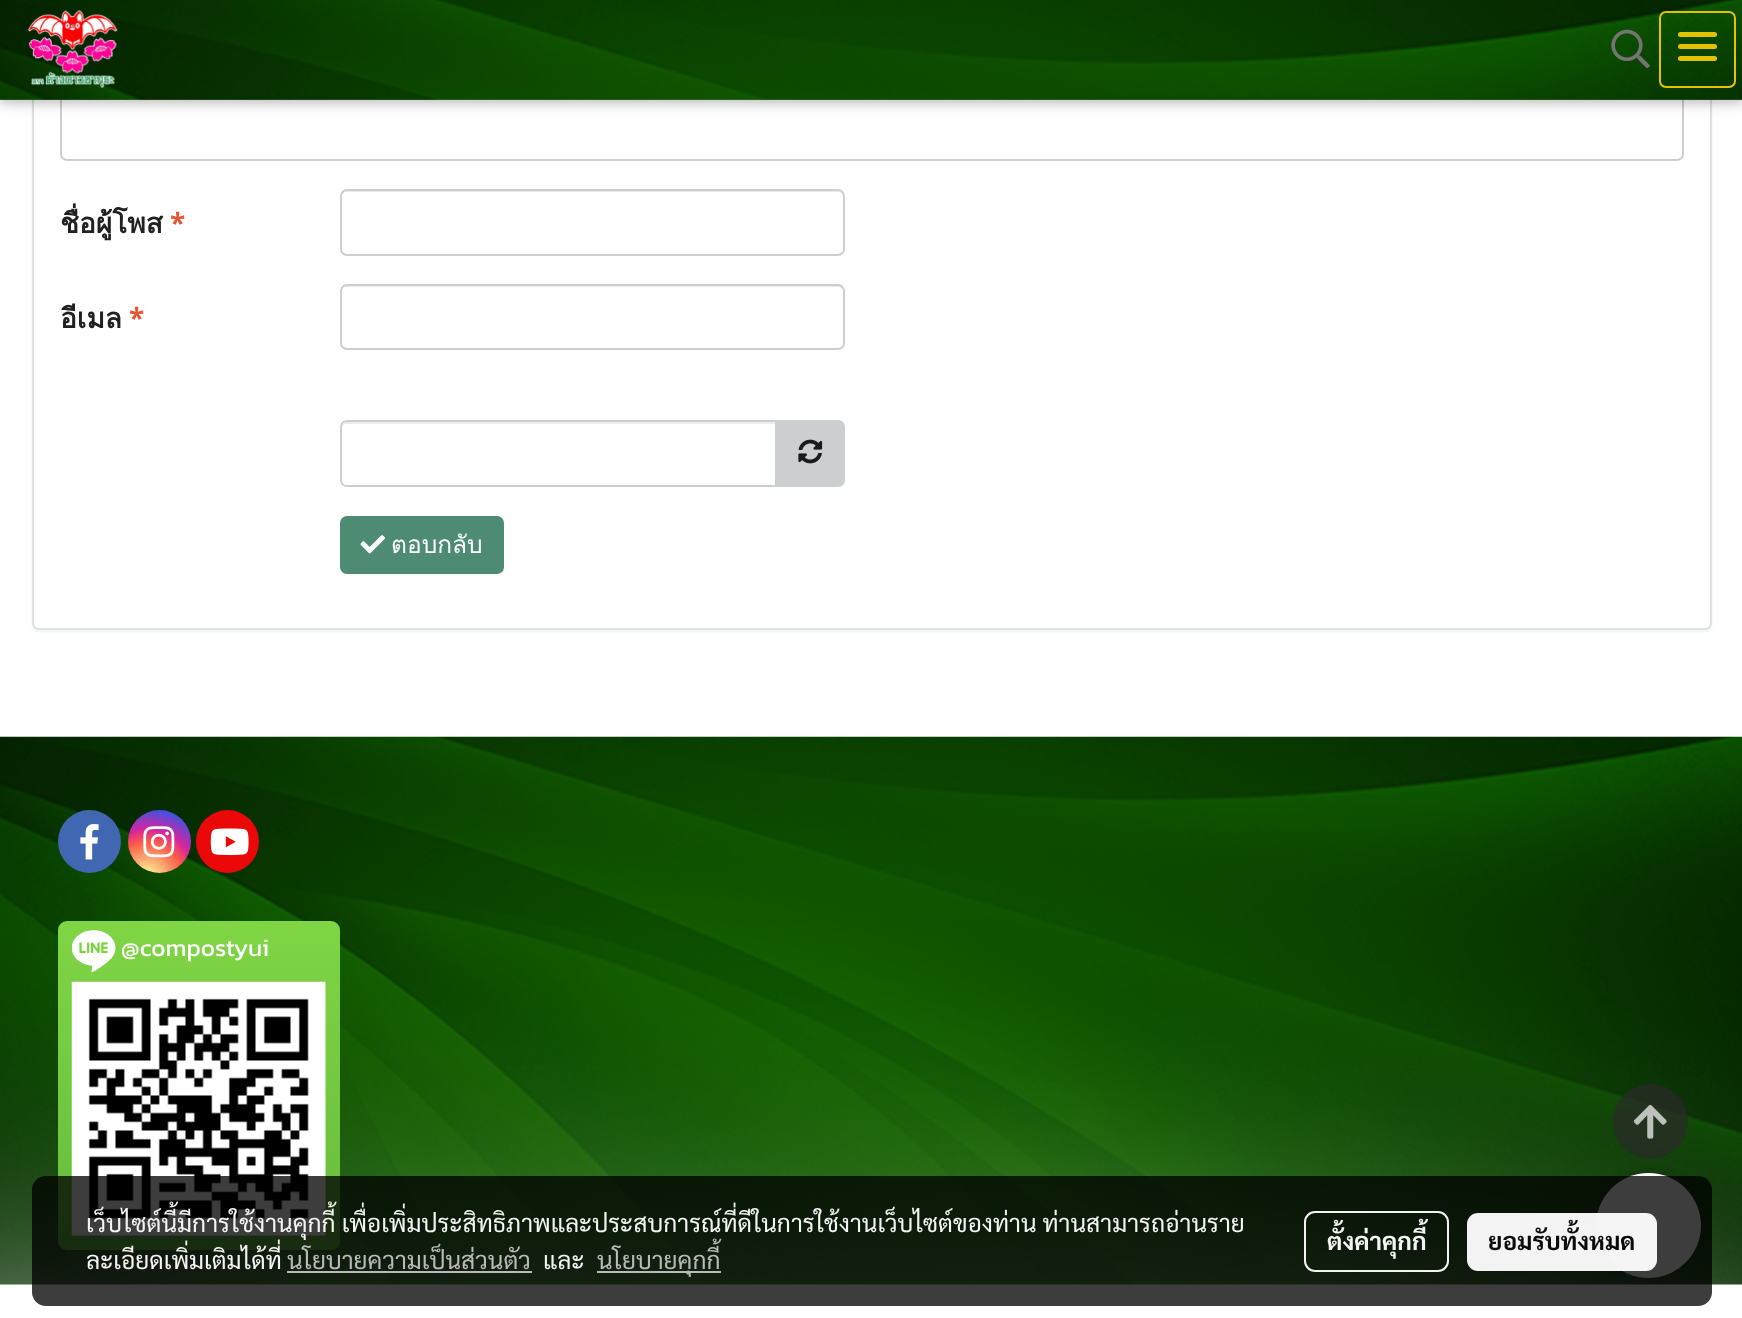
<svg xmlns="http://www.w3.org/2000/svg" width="1742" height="1318">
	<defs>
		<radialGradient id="g1" gradientUnits="userSpaceOnUse" cx="147" cy="878" r="81"><stop offset="0" stop-color="#FDF497" /><stop offset="0.05" stop-color="#FDF497" /><stop offset="0.45" stop-color="#FD5949" /><stop offset="0.6" stop-color="#D6249F" /><stop offset="0.9" stop-color="#285AEB" /></radialGradient>
		<linearGradient id="g2" gradientUnits="userSpaceOnUse" x1="199" y1="921" x2="199" y2="1250"><stop offset="0" stop-color="#80D544" /><stop offset="1" stop-color="#65BC3E" /></linearGradient>
	</defs>
	<rect width="100%" height="100%" fill="#FFFFFF" />
	<rect x="32" y="-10" width="1680" height="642" rx="7" fill="#000000" fill-opacity="0.05" filter="blur(1px)" />
	<rect x="33" y="-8" width="1678" height="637" rx="6" fill="#FFFFFF" stroke="#DEE2E6" stroke-width="2" />
	<rect x="61" y="-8" width="1622" height="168" rx="6" fill="none" stroke="#CDCED2" stroke-width="2" />
	<rect x="0" y="4" width="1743" height="99" fill="#000000" fill-opacity="0.12" filter="blur(9px)" />
	<rect x="0" y="4" width="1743" height="99" fill="#000000" fill-opacity="0.16" filter="blur(4.5px)" />
	<image x="0" y="0" width="1742" height="100" href="assets/img1.png" />
	<image x="28" y="10" width="90" height="78" href="assets/img2.png" />
	<image x="1611" y="29" width="39" height="40" href="assets/img3.png" />
	<rect x="1660" y="12" width="75" height="75" rx="6" fill="none" stroke="#E4C201" stroke-width="2" />
	<rect x="1678" y="44" width="39" height="5" rx="2.5" fill="#E4C201" />
	<rect x="1678" y="32" width="39" height="5" rx="2.5" fill="#E4C201" />
	<rect x="1678" y="56" width="39" height="5" rx="2.5" fill="#E4C201" />
	<text x="60" y="233" font-family="Loma" font-size="28" font-weight="700" fill="#212121">ชื่อผู้โพส</text>
	<text x="170" y="233" font-family="Open Sans" font-size="28" font-weight="700" fill="#E45735">*</text>
	<path d="M346 192H838C841 192 844 195 844 198V196C844 193 842 191 839 191H346C343 191 341 193 341 196V198C341 195 344 192 346 192Z" fill="#ECECEC" />
	<rect x="341" y="190" width="503" height="65" rx="6" fill="none" stroke="#CDCED2" stroke-width="2" />
	<text x="60" y="328" font-family="Loma" font-size="28" font-weight="700" fill="#212121">อีเมล</text>
	<text x="129" y="328" font-family="Open Sans" font-size="28" font-weight="700" fill="#E45735">*</text>
	<path d="M346 287H838C841 287 844 289 844 292V290C844 287 842 285 839 285H346C343 285 341 287 341 290V292C341 289 344 287 346 287Z" fill="#ECECEC" />
	<rect x="341" y="285" width="503" height="64" rx="6" fill="none" stroke="#CDCED2" stroke-width="2" />
	<path d="M346 424H775V422H346C342 422 341 426 341 429C341 426 344 424 346 424Z" fill="#ECECEC" />
	<path d="M347 421H776V486H347C343.5 486 341 483.5 341 480V427C341 423.5 343.5 421 347 421Z" fill="none" stroke="#CDCED2" stroke-width="2" />
	<path d="M776 421H838C841.5 421 844 423.5 844 427V480C844 483.5 841.5 486 838 486H776Z" fill="#CDCED0" stroke="#CDCED2" stroke-width="2" />
	<image x="798" y="439" width="25" height="25" href="assets/img4.png" />
	<rect x="340" y="516" width="164" height="58" rx="7" fill="#4E8B73" />
	<image x="360" y="535" width="25" height="19" href="assets/img5.png" />
	<text x="391" y="553" font-family="Loma" font-size="24.5" fill="#FFFFFF">ตอบกลับ</text>
	<image x="0" y="736" width="1742" height="549" href="assets/img6.png" />
	<circle cx="89.5" cy="841.5" r="31.5" fill="#4267B2" />
	<image x="80" y="824" width="19" height="36" href="assets/img7.png" />
	<circle cx="159.5" cy="841.5" r="31.5" fill="url(#g1)" />
	<image x="143" y="826" width="32" height="32" href="assets/img8.png" />
	<circle cx="227.5" cy="841.5" r="31.5" fill="#EB0808" />
	<image x="210" y="828" width="39" height="28" href="assets/img9.png" />
	<rect x="58" y="921" width="282" height="329" rx="9" fill="url(#g2)" />
	<image x="72" y="930" width="44" height="42" href="assets/img10.png" />
	<text x="121" y="956" font-family="Kanit" font-size="24.5" fill="#FFFFFF">@compostyui</text>
	<image x="71" y="981" width="255" height="255" href="assets/img11.png" />
	<rect x="1596" y="1173" width="105" height="105" rx="52.5" fill="#000000" fill-opacity="0.14" filter="blur(6px)" />
	<path d="M1650 1084C1630 1084 1613 1101 1613 1122C1613 1142 1630 1159 1650 1159C1671 1159 1688 1142 1688 1122C1688 1101 1671 1084 1650 1084Z" fill="#2B2A2A" fill-opacity="0.7" />
	<image x="1633" y="1104" width="34" height="35" href="assets/img12.png" />
	<circle cx="1648.5" cy="1225.5" r="52.5" fill="#FFFFFF" />
	<rect x="32" y="1176" width="1680" height="130" rx="14" fill="#000000" fill-opacity="0.76" />
	<g font-family="Sarabun" font-size="24.5" fill="#F3F4F3">
		<text x="86" y="1232">เว็บไซต์นี้มีการใช้งานคุกกี้ เพื่อเพิ่มประสิทธิภาพและประสบการณ์ที่ดีในการใช้งานเว็บไซต์ของท่าน ท่านสามารถอ่านราย</text>
		<text x="86" y="1269">ละเอียดเพิ่มเติมได้ที่</text>
	</g>
	<text x="287" y="1269" font-family="Sarabun" font-size="24.5" fill="#B9BAB9">นโยบายความเป็นส่วนตัว</text>
	<rect x="287" y="1271" width="245" height="2" fill="#C2C2C2" fill-opacity="0.95" />
	<text x="543" y="1269" font-family="Sarabun" font-size="24.5" fill="#F3F4F3">และ</text>
	<rect x="597" y="1271" width="124" height="2" fill="#B9BAB9" />
	<text x="597" y="1269" font-family="Sarabun" font-size="24.5" fill="#B9BAB9">นโยบายคุกกี้</text>
	<rect x="1305" y="1212" width="143" height="59" rx="10" fill="none" stroke="#FFFFFF" stroke-opacity="0.95" stroke-width="2" />
	<text x="1327" y="1250" font-family="Sarabun" font-size="24.5" font-weight="700" fill="#F3F4F3">ตั้งค่าคุกกี้</text>
	<rect x="1467" y="1213" width="190" height="58" rx="11" fill="#FFFFFF" fill-opacity="0.95" />
	<text x="1488" y="1250" font-family="Sarabun" font-size="24.5" font-weight="700" fill="#0C0C0C">ยอมรับทั้งหมด</text>
</svg>
